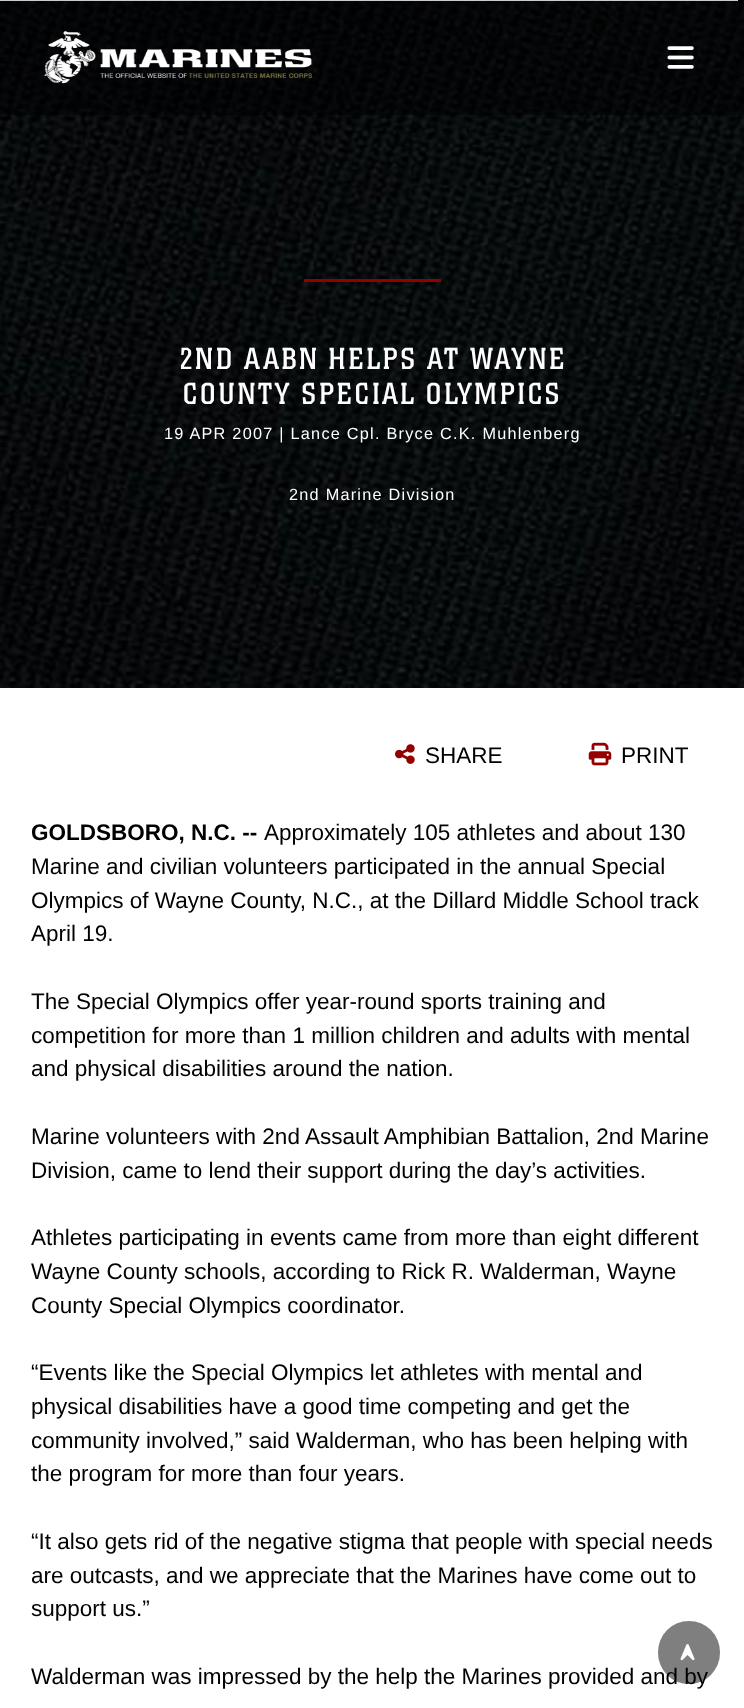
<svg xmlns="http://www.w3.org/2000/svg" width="744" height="1708">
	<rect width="100%" height="100%" fill="#FFFFFF" />
	<image x="0" y="0" width="744" height="688" href="assets/img3.png" />
	<rect x="0" y="0" width="744" height="115" fill="#000000" fill-opacity="0.5" />
	<image x="44" y="31" width="269" height="53" href="assets/img1.png" />
	<image x="667" y="46" width="27" height="23" href="assets/img2.png" />
	<rect x="0" y="0" width="738" height="1" fill="#CCCCCC" />
	<rect x="304" y="279" width="137" height="3" fill="#940000" />
	<g font-family="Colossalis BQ" font-size="30" letter-spacing="2.5" fill="#FFFFFF">
		<text x="179" y="369">2ND AABN HELPS AT WAYNE</text>
		<text x="183" y="404">COUNTY SPECIAL OLYMPICS</text>
	</g>
	<g font-family="Liberation Sans" font-size="16.25" letter-spacing="1.25" fill="#FFFFFF">
		<text x="164" y="439">19 APR 2007 | Lance Cpl. Bryce C.K. Muhlenberg</text>
		<text x="289" y="500">2nd Marine Division</text>
	</g>
	<image x="395" y="744" width="20" height="20" href="assets/img4.png" />
	<text x="425" y="763" font-family="Liberation Sans" font-size="22.5" fill="#000000">SHARE</text>
	<image x="588" y="742" width="24" height="24" href="assets/img5.png" />
	<text x="621" y="763" font-family="Liberation Sans" font-size="22.5" fill="#000000">PRINT</text>
	<text x="31" y="840" font-family="Liberation Sans" font-size="22.5" font-weight="700" fill="#000000">GOLDSBORO, N.C. --</text>
	<g font-family="Liberation Sans" font-size="22.5" fill="#000000">
		<text x="264" y="840">Approximately 105 athletes and about 130</text>
		<text x="31" y="874">Marine and civilian volunteers participated in the annual Special</text>
		<text x="31" y="908">Olympics of Wayne County, N.C., at the Dillard Middle School track</text>
		<text x="31" y="941">April 19.</text>
		<text x="31" y="1009">The Special Olympics offer year-round sports training and</text>
		<text x="31" y="1043">competition for more than 1 million children and adults with mental</text>
		<text x="31" y="1076">and physical disabilities around the nation.</text>
		<text x="31" y="1144">Marine volunteers with 2nd Assault Amphibian Battalion, 2nd Marine</text>
		<text x="31" y="1178">Division, came to lend their support during the day’s activities.</text>
		<text x="31" y="1245">Athletes participating in events came from more than eight different</text>
		<text x="31" y="1279">Wayne County schools, according to Rick R. Walderman, Wayne</text>
		<text x="31" y="1313">County Special Olympics coordinator.</text>
		<text x="31" y="1380">“Events like the Special Olympics let athletes with mental and</text>
		<text x="31" y="1414">physical disabilities have a good time competing and get the</text>
		<text x="31" y="1448">community involved,” said Walderman, who has been helping with</text>
		<text x="31" y="1481">the program for more than four years.</text>
		<text x="31" y="1549">“It also gets rid of the negative stigma that people with special needs</text>
		<text x="31" y="1583">are outcasts, and we appreciate that the Marines have come out to</text>
		<text x="31" y="1616">support us.”</text>
		<text x="31" y="1684">Walderman was impressed by the help the Marines provided and by</text>
	</g>
	<rect x="658" y="1621" width="62" height="63" rx="31" fill="#000000" fill-opacity="0.5" />
	<image x="680" y="1644" width="15" height="17" href="assets/img6.png" />
</svg>
